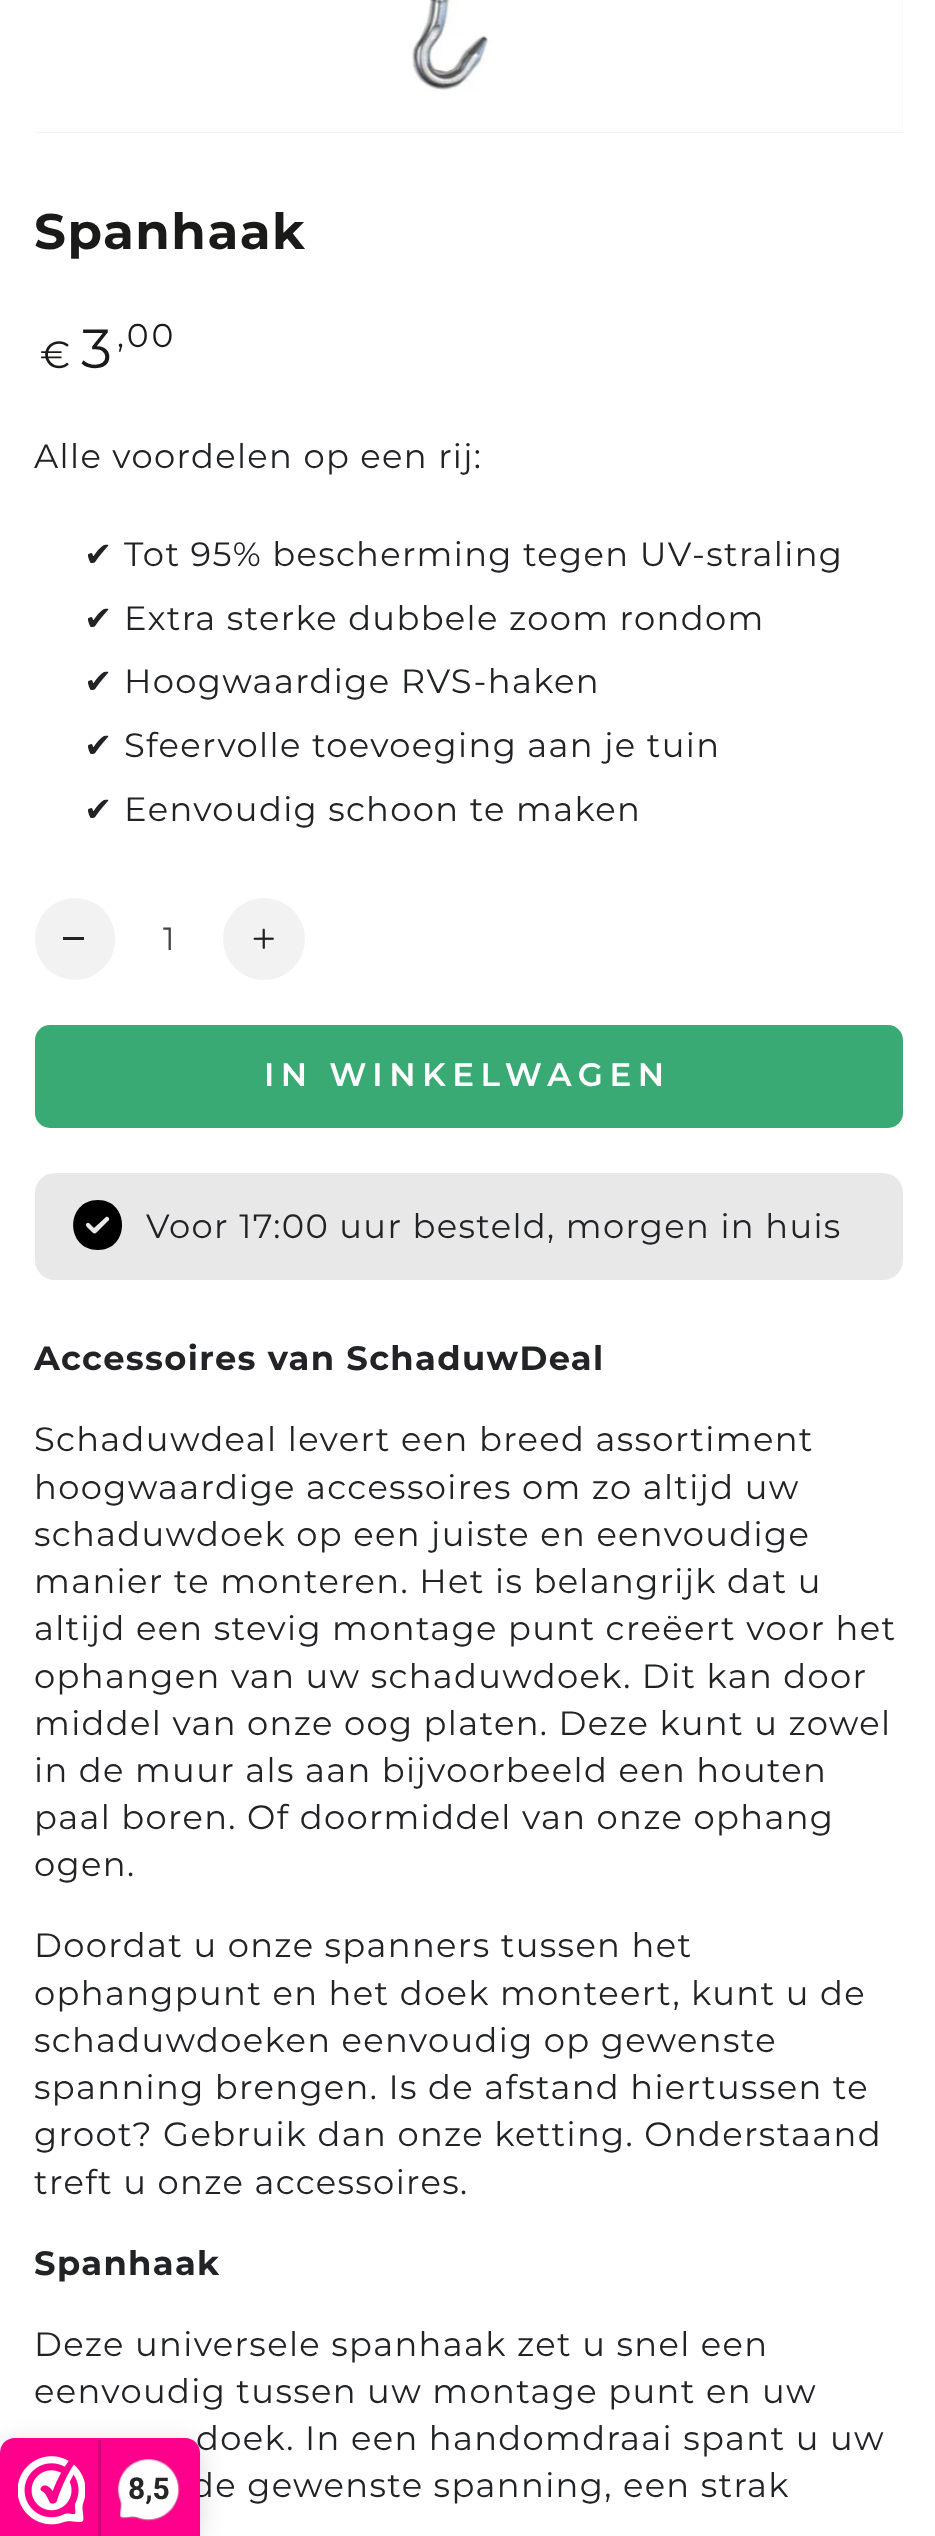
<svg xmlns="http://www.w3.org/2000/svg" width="935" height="2536">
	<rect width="100%" height="100%" fill="#FFFFFF" />
	<rect x="35" y="0" width="868" height="133" fill="#F3F3F3" />
	<image x="35" y="0" width="868" height="132" href="assets/img1.png" />
	<text x="34" y="249" font-family="Montserrat" font-size="50" font-weight="700" letter-spacing="1.5" fill="#1A1B18">Spanhaak</text>
	<text x="40" y="368" font-family="Montserrat" font-size="38" letter-spacing="3" fill="#1A1B18">€</text>
	<text x="81" y="368" font-family="Montserrat" font-size="55" letter-spacing="3" fill="#1A1B18">3</text>
	<text x="117" y="347" font-family="Montserrat" font-size="33" letter-spacing="3" fill="#1A1B18">,00</text>
	<text x="34" y="468" font-family="Montserrat" font-size="33.75" letter-spacing="1.35" fill="#212326">Alle voordelen op een rij:</text>
	<text x="84" y="566" font-family="DejaVu Sans" font-size="33.75" letter-spacing="1.35" fill="#212326">✔</text>
	<text x="124" y="566" font-family="Montserrat" font-size="33.75" letter-spacing="1.35" fill="#212326">Tot 95% bescherming tegen UV-straling</text>
	<text x="84" y="630" font-family="DejaVu Sans" font-size="33.75" letter-spacing="1.35" fill="#212326">✔</text>
	<text x="124" y="630" font-family="Montserrat" font-size="33.75" letter-spacing="1.35" fill="#212326">Extra sterke dubbele zoom rondom</text>
	<text x="84" y="693" font-family="DejaVu Sans" font-size="33.75" letter-spacing="1.35" fill="#212326">✔</text>
	<text x="124" y="693" font-family="Montserrat" font-size="33.75" letter-spacing="1.35" fill="#212326">Hoogwaardige RVS-haken</text>
	<text x="84" y="757" font-family="DejaVu Sans" font-size="33.75" letter-spacing="1.35" fill="#212326">✔</text>
	<text x="124" y="757" font-family="Montserrat" font-size="33.75" letter-spacing="1.35" fill="#212326">Sfeervolle toevoeging aan je tuin</text>
	<text x="84" y="821" font-family="DejaVu Sans" font-size="33.75" letter-spacing="1.35" fill="#212326">✔</text>
	<text x="124" y="821" font-family="Montserrat" font-size="33.75" letter-spacing="1.35" fill="#212326">Eenvoudig schoon te maken</text>
	<rect x="35" y="898" width="80" height="82" rx="40" fill="#F2F2F2" />
	<rect x="63" y="937" width="21" height="3" fill="#212326" />
	<text x="163" y="950" font-family="Montserrat" font-size="32" fill="#424447">1</text>
	<circle cx="264" cy="939" r="41" fill="#F2F2F2" />
	<image x="253" y="928" width="21" height="21" href="assets/img2.png" />
	<rect x="37.5" y="1027.5" width="863" height="98" rx="12.5" fill="#39AA73" stroke="#39AA73" stroke-width="5" />
	<text x="264" y="1086" font-family="Montserrat" font-size="32.5" font-weight="600" letter-spacing="6.5" fill="#FFFFFF">IN WINKELWAGEN</text>
	<rect x="35" y="1173" width="868" height="107" rx="20" fill="#E8E8E8" />
	<path d="M98 1250C130 1250 130 1200 98 1200C65 1200 65 1250 98 1250ZM109 1220L98 1231C94 1235 94 1234 90 1230C88 1228 84 1225 87 1223H89L94 1228L106 1217C108 1216 110 1219 109 1220Z" fill="#000000" />
	<text x="146" y="1238" font-family="Montserrat" font-size="33.75" letter-spacing="1.35" fill="#212326">Voor 17:00 uur besteld, morgen in huis</text>
	<text x="34" y="1370" font-family="Montserrat" font-size="33.75" font-weight="700" letter-spacing="1.35" fill="#212326">Accessoires van SchaduwDeal</text>
	<g font-family="Montserrat" font-size="33.75" letter-spacing="1.35" fill="#212326">
		<text x="34" y="1451">Schaduwdeal levert een breed assortiment</text>
		<text x="34" y="1499">hoogwaardige accessoires om zo altijd uw</text>
		<text x="34" y="1546">schaduwdoek op een juiste en eenvoudige</text>
		<text x="34" y="1593">manier te monteren. Het is belangrijk dat u</text>
		<text x="34" y="1640">altijd een stevig montage punt creëert voor het</text>
		<text x="34" y="1688">ophangen van uw schaduwdoek. Dit kan door</text>
		<text x="34" y="1735">middel van onze oog platen. Deze kunt u zowel</text>
		<text x="34" y="1782">in de muur als aan bijvoorbeeld een houten</text>
		<text x="34" y="1829">paal boren. Of doormiddel van onze ophang</text>
		<text x="34" y="1876">ogen.</text>
		<text x="34" y="1957">Doordat u onze spanners tussen het</text>
		<text x="34" y="2005">ophangpunt en het doek monteert, kunt u de</text>
		<text x="34" y="2052">schaduwdoeken eenvoudig op gewenste</text>
		<text x="34" y="2099">spanning brengen. Is de afstand hiertussen te</text>
		<text x="34" y="2146">groot? Gebruik dan onze ketting. Onderstaand</text>
		<text x="34" y="2194">treft u onze accessoires.</text>
	</g>
	<text x="34" y="2275" font-family="Montserrat" font-size="33.75" font-weight="700" letter-spacing="1.35" fill="#212326">Spanhaak</text>
	<g font-family="Montserrat" font-size="33.75" letter-spacing="1.35" fill="#212326">
		<text x="34" y="2356">Deze universele spanhaak zet u snel een</text>
		<text x="34" y="2403">eenvoudig tussen uw montage punt en uw</text>
		<text x="196" y="2450">doek. In een handomdraai spant u uw</text>
		<text x="191" y="2497">de gewenste spanning, een strak</text>
	</g>
	<rect x="0" y="2443" width="200" height="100" rx="15" fill="#000000" fill-opacity="0.15" filter="blur(12.5px)" />
	<path d="M15 2438H185C193.5 2438 200 2444.5 200 2453V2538H0V2453C0 2444.5 6.5 2438 15 2438Z" fill="#FE008C" />
	<image x="18" y="2456" width="67" height="69" href="assets/img3.png" />
	<rect x="98" y="2440" width="3" height="96" fill="#D80077" />
	<image x="117" y="2459" width="63" height="63" href="assets/img4.png" />
	<text x="128" y="2499" font-family="Roboto" font-size="30" font-weight="700" fill="#272626">8,5</text>
</svg>
